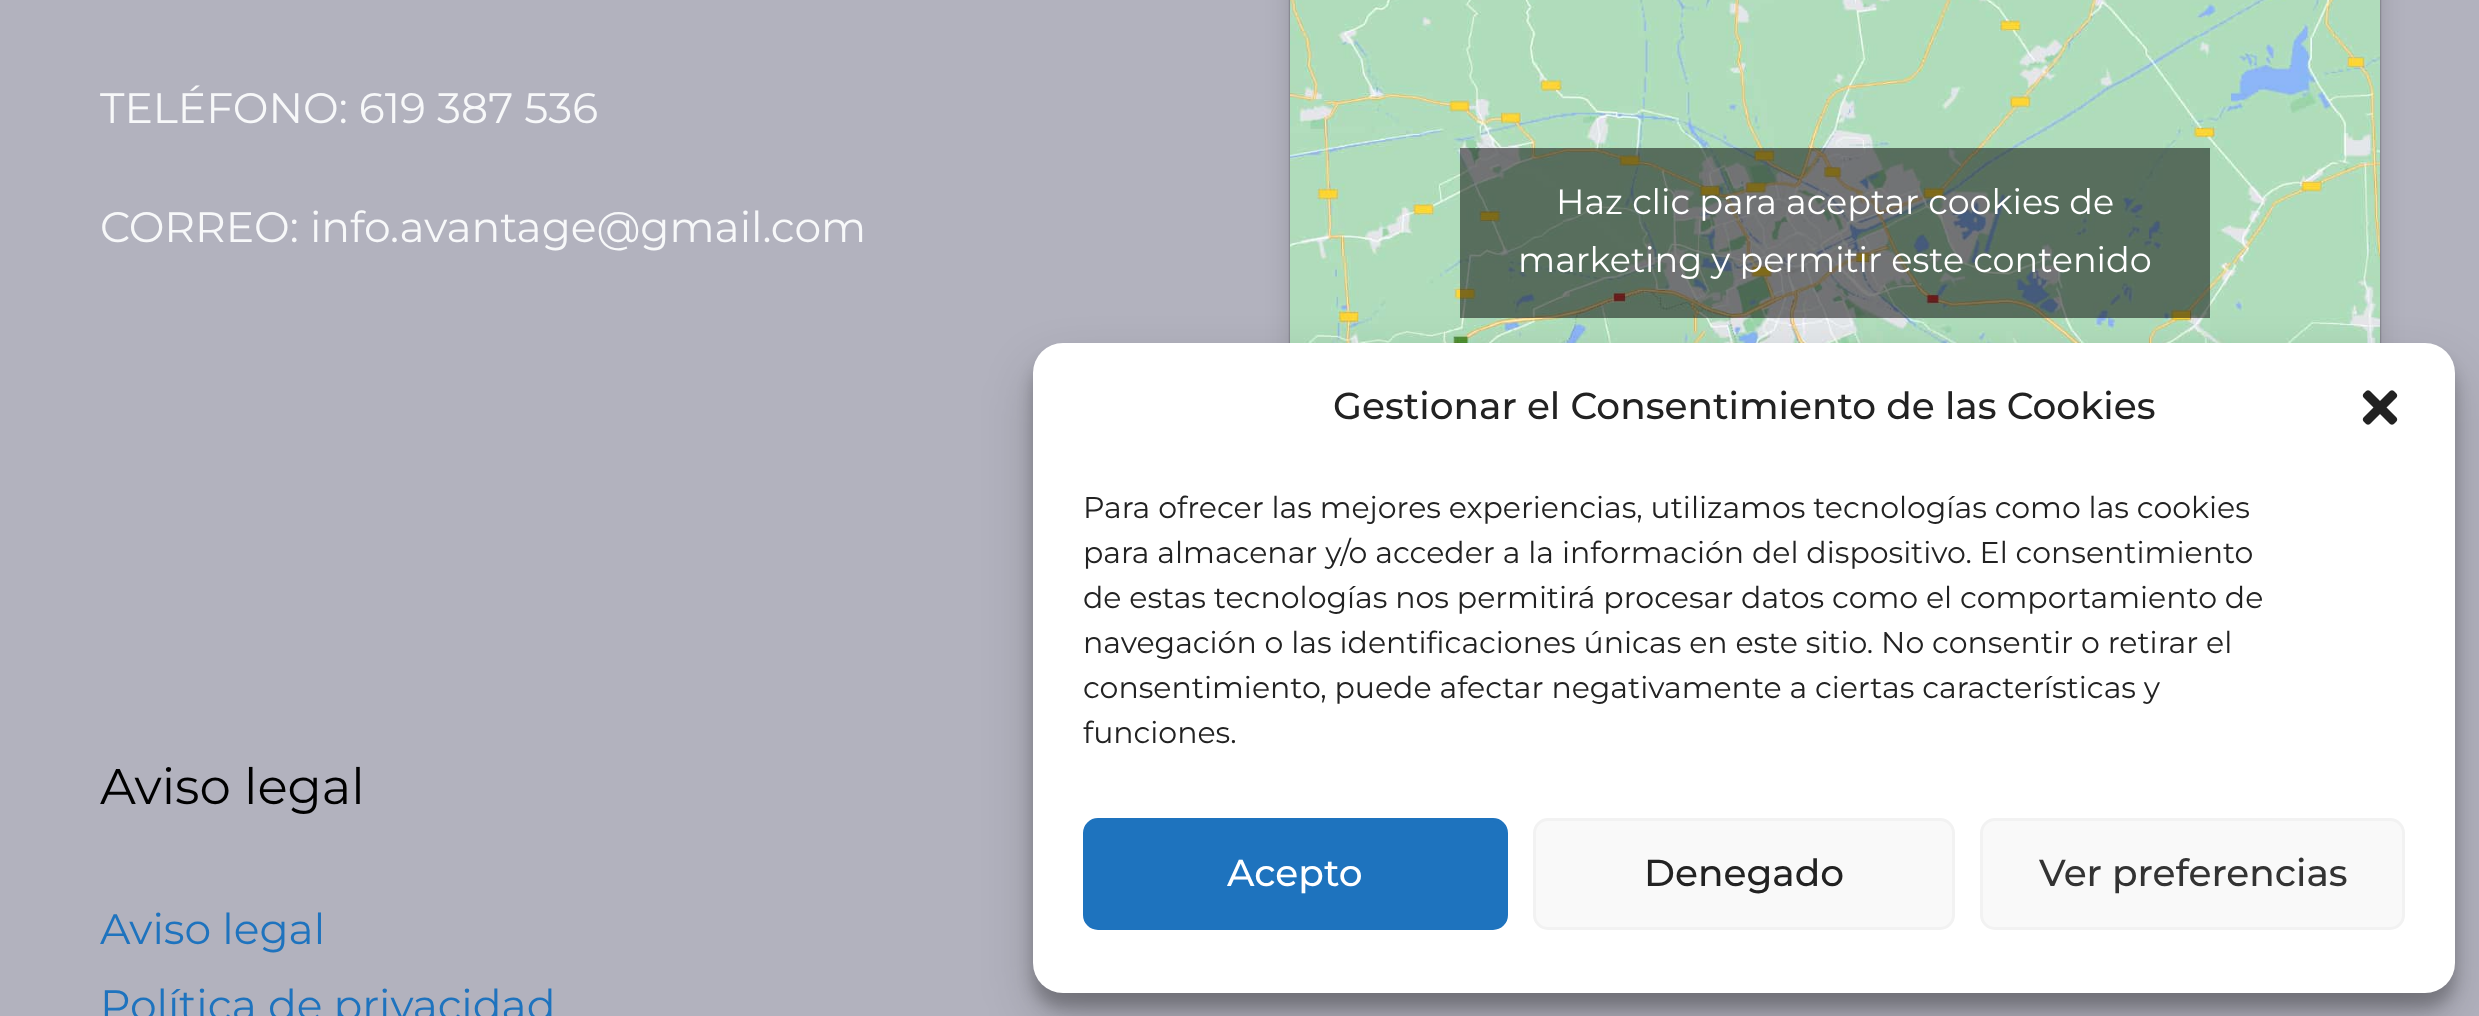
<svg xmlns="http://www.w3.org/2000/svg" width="2479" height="1016">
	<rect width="100%" height="100%" fill="#B2B2BE" />
	<g font-family="Montserrat" font-size="42.5" fill="#F7F8F9">
		<text x="100" y="123">TELÉFONO: 619 387 536</text>
		<text x="100" y="242">CORREO: info.avantage@gmail.com</text>
	</g>
	<rect x="1290" y="-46" width="1090" height="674" rx="8" fill="#000000" fill-opacity="0.15" filter="blur(12.5px)" />
	<rect x="1290" y="-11" width="1090" height="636" rx="8" fill="#000000" fill-opacity="0.5" filter="blur(1px)" />
	<image x="1290" y="0" width="1090" height="343" href="assets/img1.png" />
	<rect x="1460" y="148" width="750" height="170" fill="#000000" fill-opacity="0.5" />
	<g font-family="Montserrat" font-size="35" fill="#FFFFFF">
		<text x="1556" y="214">Haz clic para aceptar cookies de</text>
		<text x="1518" y="272">marketing y permitir este contenido</text>
	</g>
	<text x="100" y="804" font-family="Montserrat" font-size="50" fill="#000000">Aviso legal</text>
	<g font-family="Montserrat" font-size="42.5" fill="#1E73BE">
		<text x="100" y="944">Aviso legal</text>
		<text x="100" y="1020">Política de privacidad</text>
	</g>
	<rect x="1033" y="358" width="1422" height="650" rx="30" fill="#000000" fill-opacity="0.23" filter="blur(7.5px)" />
	<rect x="1033" y="368" width="1422" height="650" rx="30" fill="#000000" fill-opacity="0.19" filter="blur(25px)" />
	<rect x="1033" y="343" width="1422" height="650" rx="30" fill="#FFFFFF" />
	<text x="1333" y="419" font-family="Montserrat" font-size="37.5" font-weight="500" fill="#222222">Gestionar el Consentimiento de las Cookies</text>
	<image x="2362" y="390" width="36" height="35" href="assets/img2.png" />
	<g font-family="Montserrat" font-size="30" fill="#222222">
		<text x="1083" y="518">Para ofrecer las mejores experiencias, utilizamos tecnologías como las cookies</text>
		<text x="1083" y="563">para almacenar y/o acceder a la información del dispositivo. El consentimiento</text>
		<text x="1083" y="608">de estas tecnologías nos permitirá procesar datos como el comportamiento de</text>
		<text x="1083" y="653">navegación o las identificaciones únicas en este sitio. No consentir o retirar el</text>
		<text x="1083" y="698">consentimiento, puede afectar negativamente a ciertas características y</text>
		<text x="1083" y="743">funciones.</text>
	</g>
	<rect x="1084.5" y="819.5" width="422" height="109" rx="13.5" fill="#1E73BE" stroke="#1E73BE" stroke-width="3" />
	<text x="1227" y="886" font-family="Montserrat" font-size="37.5" font-weight="500" fill="#FFFFFF">Acepto</text>
	<rect x="1534.5" y="819.5" width="419" height="109" rx="13.5" fill="#F9F9F9" stroke="#F2F2F2" stroke-width="3" />
	<text x="1644" y="886" font-family="Montserrat" font-size="37.5" font-weight="500" fill="#222222">Denegado</text>
	<rect x="1981.5" y="819.5" width="422" height="109" rx="13.5" fill="#F9F9F9" stroke="#F2F2F2" stroke-width="3" />
	<text x="2039" y="886" font-family="Montserrat" font-size="37.5" font-weight="500" fill="#333333">Ver preferencias</text>
</svg>
